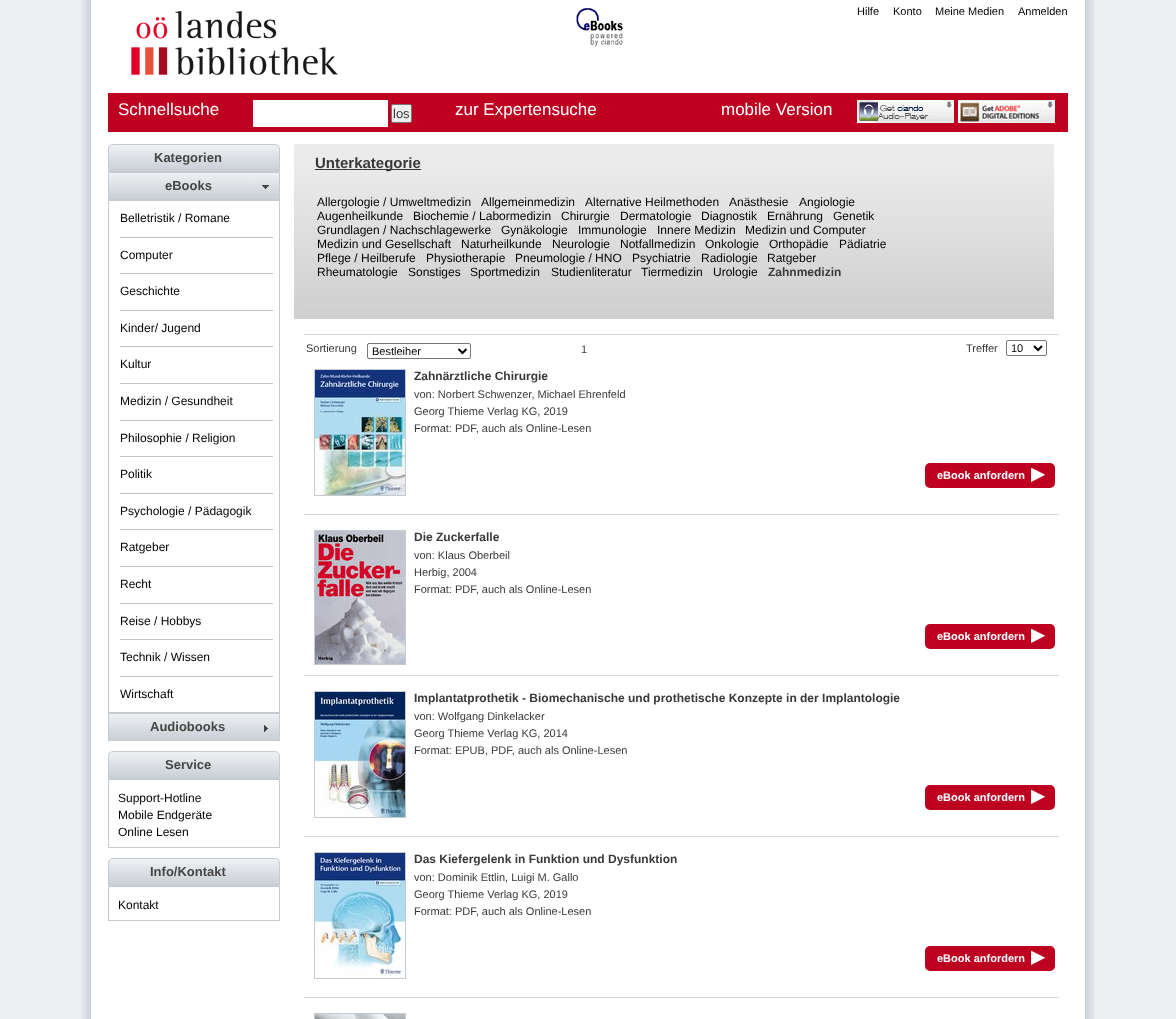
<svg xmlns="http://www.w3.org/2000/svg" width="1176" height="1019">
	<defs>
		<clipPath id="clip1"><path d="M113 144H275C278 144 280 146 280 149V172H108V149C108 146 110 144 113 144Z" /></clipPath>
		<linearGradient id="g1" gradientUnits="userSpaceOnUse" x1="109" y1="145" x2="109" y2="171"><stop offset="0.05" stop-color="#EDEFF2" /><stop offset="1" stop-color="#C9CFD5" /></linearGradient>
		<linearGradient id="g2" gradientUnits="userSpaceOnUse" x1="109" y1="173" x2="109" y2="199"><stop offset="0.05" stop-color="#EDEFF2" /><stop offset="1" stop-color="#C9CFD5" /></linearGradient>
		<linearGradient id="g3" gradientUnits="userSpaceOnUse" x1="109" y1="714" x2="109" y2="740"><stop offset="0.05" stop-color="#EDEFF2" /><stop offset="1" stop-color="#C9CFD5" /></linearGradient>
		<clipPath id="clip2"><path d="M113 751H275C278 751 280 753 280 756V779H108V756C108 753 110 751 113 751Z" /></clipPath>
		<linearGradient id="g4" gradientUnits="userSpaceOnUse" x1="109" y1="752" x2="109" y2="778"><stop offset="0.05" stop-color="#EDEFF2" /><stop offset="1" stop-color="#C9CFD5" /></linearGradient>
		<clipPath id="clip3"><path d="M113 858H275C278 858 280 860 280 863V886H108V863C108 860 110 858 113 858Z" /></clipPath>
		<linearGradient id="g5" gradientUnits="userSpaceOnUse" x1="109" y1="859" x2="109" y2="885"><stop offset="0.05" stop-color="#EDEFF2" /><stop offset="1" stop-color="#C9CFD5" /></linearGradient>
	</defs>
	<rect width="100%" height="100%" fill="#EDEFF2" />
	<image x="81" y="0" width="1014" height="1019" href="assets/img1.png" />
	<image x="131" y="11" width="207" height="64" href="assets/img2.png" />
	<image x="576" y="8" width="47" height="39" href="assets/img3.png" />
	<g font-family="Liberation Sans" font-size="11" fill="#000000">
		<text x="857" y="15">Hilfe</text>
		<text x="893" y="15">Konto</text>
		<text x="935" y="15">Meine Medien</text>
		<text x="1018" y="15">Anmelden</text>
	</g>
	<rect x="108" y="93" width="960" height="39" fill="#BE0021" />
	<text x="118" y="115" font-family="Liberation Sans" font-size="17" fill="#FFFFFF">Schnellsuche</text>
	<rect x="253" y="100" width="135" height="27" fill="#FFFFFF" />
	<rect x="391.5" y="104.5" width="20" height="18" rx="1.5" fill="#EFEFEF" stroke="#767676" />
	<text x="393" y="118" font-family="Liberation Sans" font-size="13" fill="#393939">los</text>
	<g font-family="Liberation Sans" font-size="17" fill="#FFFFFF">
		<text x="455" y="115">zur Expertensuche</text>
		<text x="721" y="115">mobile Version</text>
	</g>
	<image x="857" y="100" width="97" height="23" href="assets/img4.png" />
	<image x="958" y="100" width="97" height="23" href="assets/img5.png" />
	<g clip-path="url(#clip1)">
		<rect x="108" y="145" width="172" height="26" fill="url(#g1)" />
	</g>
	<path d="M113 144.5H275C277.5 144.5 279.5 146.5 279.5 149V171.5H108.5V149C108.5 146.5 110.5 144.5 113 144.5Z" fill="none" stroke="#C6CBD2" />
	<text x="154" y="162" font-family="Liberation Sans" font-size="13" font-weight="700" fill="#454545">Kategorien</text>
	<rect x="109" y="173" width="170" height="26" fill="url(#g2)" />
	<rect x="108.5" y="172.5" width="171" height="27" fill="none" stroke="#C6CBD2" />
	<text x="165" y="190" font-family="Liberation Sans" font-size="13" font-weight="700" fill="#454545">eBooks</text>
	<image x="262" y="185" width="7" height="4" href="assets/img6.png" />
	<rect x="108.5" y="200.5" width="171" height="512" fill="none" stroke="#C6CBD2" />
	<rect x="120" y="237" width="153" height="1" fill="#BFC1CB" />
	<text x="120" y="222" font-family="Liberation Sans" font-size="12" fill="#000000">Belletristik / Romane</text>
	<rect x="120" y="273" width="153" height="1" fill="#BFC1CB" />
	<text x="120" y="259" font-family="Liberation Sans" font-size="12" fill="#000000">Computer</text>
	<rect x="120" y="310" width="153" height="1" fill="#BFC1CB" />
	<text x="120" y="295" font-family="Liberation Sans" font-size="12" fill="#000000">Geschichte</text>
	<rect x="120" y="346" width="153" height="1" fill="#BFC1CB" />
	<text x="120" y="332" font-family="Liberation Sans" font-size="12" fill="#000000">Kinder/ Jugend</text>
	<rect x="120" y="383" width="153" height="1" fill="#BFC1CB" />
	<text x="120" y="368" font-family="Liberation Sans" font-size="12" fill="#000000">Kultur</text>
	<rect x="120" y="420" width="153" height="1" fill="#BFC1CB" />
	<text x="120" y="405" font-family="Liberation Sans" font-size="12" fill="#000000">Medizin / Gesundheit</text>
	<rect x="120" y="456" width="153" height="1" fill="#BFC1CB" />
	<text x="120" y="442" font-family="Liberation Sans" font-size="12" fill="#000000">Philosophie / Religion</text>
	<rect x="120" y="493" width="153" height="1" fill="#BFC1CB" />
	<text x="120" y="478" font-family="Liberation Sans" font-size="12" fill="#000000">Politik</text>
	<rect x="120" y="529" width="153" height="1" fill="#BFC1CB" />
	<text x="120" y="515" font-family="Liberation Sans" font-size="12" fill="#000000">Psychologie / Pädagogik</text>
	<rect x="120" y="566" width="153" height="1" fill="#BFC1CB" />
	<text x="120" y="551" font-family="Liberation Sans" font-size="12" fill="#000000">Ratgeber</text>
	<rect x="120" y="603" width="153" height="1" fill="#BFC1CB" />
	<text x="120" y="588" font-family="Liberation Sans" font-size="12" fill="#000000">Recht</text>
	<rect x="120" y="639" width="153" height="1" fill="#BFC1CB" />
	<text x="120" y="625" font-family="Liberation Sans" font-size="12" fill="#000000">Reise / Hobbys</text>
	<rect x="120" y="676" width="153" height="1" fill="#BFC1CB" />
	<g font-family="Liberation Sans" font-size="12" fill="#000000">
		<text x="120" y="661">Technik / Wissen</text>
		<text x="120" y="698">Wirtschaft</text>
	</g>
	<rect x="109" y="714" width="170" height="26" fill="url(#g3)" />
	<rect x="108.5" y="713.5" width="171" height="27" fill="none" stroke="#C6CBD2" />
	<text x="150" y="731" font-family="Liberation Sans" font-size="13" font-weight="700" fill="#454545">Audiobooks</text>
	<image x="264" y="725" width="4" height="7" href="assets/img7.png" />
	<g clip-path="url(#clip2)">
		<rect x="108" y="752" width="172" height="26" fill="url(#g4)" />
	</g>
	<path d="M113 751.5H275C277.5 751.5 279.5 753.5 279.5 756V778.5H108.5V756C108.5 753.5 110.5 751.5 113 751.5Z" fill="none" stroke="#C6CBD2" />
	<text x="165" y="769" font-family="Liberation Sans" font-size="13" font-weight="700" fill="#454545">Service</text>
	<rect x="108.5" y="779.5" width="171" height="68" fill="none" stroke="#C6CBD2" />
	<g font-family="Liberation Sans" font-size="12" fill="#000000">
		<text x="118" y="802">Support-Hotline</text>
		<text x="118" y="819">Mobile Endgeräte</text>
		<text x="118" y="836">Online Lesen</text>
	</g>
	<g clip-path="url(#clip3)">
		<rect x="108" y="859" width="172" height="26" fill="url(#g5)" />
	</g>
	<path d="M113 858.5H275C277.5 858.5 279.5 860.5 279.5 863V885.5H108.5V863C108.5 860.5 110.5 858.5 113 858.5Z" fill="none" stroke="#C6CBD2" />
	<text x="150" y="876" font-family="Liberation Sans" font-size="13" font-weight="700" fill="#454545">Info/Kontakt</text>
	<rect x="108.5" y="886.5" width="171" height="34" fill="none" stroke="#C6CBD2" />
	<text x="118" y="909" font-family="Liberation Sans" font-size="12" fill="#000000">Kontakt</text>
	<image x="294" y="144" width="4" height="175" href="assets/img8.png" />
	<image x="298" y="144" width="752" height="175" href="assets/img9.png" />
	<rect x="315" y="169" width="106" height="1" fill="#393939" />
	<text x="315" y="168" font-family="Liberation Sans" font-size="15" font-weight="700" fill="#393939">Unterkategorie</text>
	<g font-family="Liberation Sans" font-size="12" fill="#000000">
		<text x="317" y="206">Allergologie / Umweltmedizin</text>
		<text x="481" y="206">Allgemeinmedizin</text>
		<text x="585" y="206">Alternative Heilmethoden</text>
		<text x="729" y="206">Anästhesie</text>
		<text x="799" y="206">Angiologie</text>
		<text x="317" y="220">Augenheilkunde</text>
		<text x="413" y="220">Biochemie / Labormedizin</text>
		<text x="561" y="220">Chirurgie</text>
		<text x="620" y="220">Dermatologie</text>
		<text x="701" y="220">Diagnostik</text>
		<text x="767" y="220">Ernährung</text>
		<text x="833" y="220">Genetik</text>
		<text x="317" y="234">Grundlagen / Nachschlagewerke</text>
		<text x="501" y="234">Gynäkologie</text>
		<text x="578" y="234">Immunologie</text>
		<text x="657" y="234">Innere Medizin</text>
		<text x="745" y="234">Medizin und Computer</text>
		<text x="317" y="248">Medizin und Gesellschaft</text>
		<text x="461" y="248">Naturheilkunde</text>
		<text x="552" y="248">Neurologie</text>
		<text x="620" y="248">Notfallmedizin</text>
		<text x="705" y="248">Onkologie</text>
		<text x="769" y="248">Orthopädie</text>
		<text x="839" y="248">Pädiatrie</text>
		<text x="317" y="262">Pflege / Heilberufe</text>
		<text x="426" y="262">Physiotherapie</text>
		<text x="515" y="262">Pneumologie / HNO</text>
		<text x="632" y="262">Psychiatrie</text>
		<text x="701" y="262">Radiologie</text>
		<text x="767" y="262">Ratgeber</text>
		<text x="317" y="276">Rheumatologie</text>
		<text x="408" y="276">Sonstiges</text>
		<text x="470" y="276">Sportmedizin</text>
		<text x="551" y="276">Studienliteratur</text>
		<text x="641" y="276">Tiermedizin</text>
		<text x="713" y="276">Urologie</text>
	</g>
	<text x="768" y="276" font-family="Liberation Sans" font-size="12" font-weight="700" fill="#393939">Zahnmedizin</text>
	<image x="1050" y="144" width="4" height="175" href="assets/img10.png" />
	<rect x="304" y="334" width="755" height="1" fill="#D4D9DE" />
	<text x="306" y="352" font-family="Liberation Sans" font-size="11" fill="#393939">Sortierung</text>
	<rect x="367.5" y="343.5" width="103" height="15" rx="1.5" fill="none" stroke="#767676" />
	<path d="M458.5 349L462.5 353L466.5 349" fill="none" stroke="#000000" stroke-width="2" />
	<text x="372" y="355" font-family="Liberation Sans" font-size="11" fill="#000000">Bestleiher</text>
	<g font-family="Liberation Sans" font-size="11" fill="#393939">
		<text x="581" y="353">1</text>
		<text x="966" y="352">Treffer</text>
	</g>
	<rect x="1006.5" y="340.5" width="40" height="15" rx="1.5" fill="none" stroke="#767676" />
	<path d="M1034 346L1038 350L1042 346" fill="none" stroke="#000000" stroke-width="2" />
	<text x="1011" y="352" font-family="Liberation Sans" font-size="11" fill="#000000">10</text>
	<rect x="304" y="514" width="755" height="1" fill="#D4D9DE" />
	<rect x="314.5" y="369.5" width="91" height="126" fill="none" stroke="#C6CBD2" />
	<image x="315" y="370" width="90" height="125" href="assets/img11.png" />
	<text x="414" y="380" font-family="Liberation Sans" font-size="12" font-weight="700" fill="#393939">Zahnärztliche Chirurgie</text>
	<g font-family="Liberation Sans" font-size="11" fill="#393939">
		<text x="414" y="398">von: Norbert Schwenzer, Michael Ehrenfeld</text>
		<text x="414" y="415">Georg Thieme Verlag KG, 2019</text>
		<text x="414" y="432">Format: PDF, auch als Online-Lesen</text>
	</g>
	<rect x="925" y="463" width="130" height="25" rx="5" fill="#BE0021" />
	<text x="937" y="479" font-family="Liberation Sans" font-size="11" font-weight="700" fill="#FFFFFF">eBook anfordern</text>
	<text x="1031" y="482" font-family="DejaVu Sans" font-size="26" font-weight="700" fill="#FFFFFF">▸</text>
	<rect x="304" y="675" width="755" height="1" fill="#D4D9DE" />
	<rect x="314.5" y="530.5" width="91" height="134" fill="none" stroke="#C6CBD2" />
	<image x="315" y="531" width="90" height="133" href="assets/img12.png" />
	<text x="414" y="541" font-family="Liberation Sans" font-size="12" font-weight="700" fill="#393939">Die Zuckerfalle</text>
	<g font-family="Liberation Sans" font-size="11" fill="#393939">
		<text x="414" y="559">von: Klaus Oberbeil</text>
		<text x="414" y="576">Herbig, 2004</text>
		<text x="414" y="593">Format: PDF, auch als Online-Lesen</text>
	</g>
	<rect x="925" y="624" width="130" height="25" rx="5" fill="#BE0021" />
	<text x="937" y="640" font-family="Liberation Sans" font-size="11" font-weight="700" fill="#FFFFFF">eBook anfordern</text>
	<text x="1031" y="643" font-family="DejaVu Sans" font-size="26" font-weight="700" fill="#FFFFFF">▸</text>
	<rect x="304" y="836" width="755" height="1" fill="#D4D9DE" />
	<rect x="314.5" y="691.5" width="91" height="126" fill="none" stroke="#C6CBD2" />
	<image x="315" y="692" width="90" height="125" href="assets/img13.png" />
	<text x="414" y="702" font-family="Liberation Sans" font-size="12" font-weight="700" fill="#393939">Implantatprothetik - Biomechanische und prothetische Konzepte in der Implantologie</text>
	<g font-family="Liberation Sans" font-size="11" fill="#393939">
		<text x="414" y="720">von: Wolfgang Dinkelacker</text>
		<text x="414" y="737">Georg Thieme Verlag KG, 2014</text>
		<text x="414" y="754">Format: EPUB, PDF, auch als Online-Lesen</text>
	</g>
	<rect x="925" y="785" width="130" height="25" rx="5" fill="#BE0021" />
	<text x="937" y="801" font-family="Liberation Sans" font-size="11" font-weight="700" fill="#FFFFFF">eBook anfordern</text>
	<text x="1031" y="804" font-family="DejaVu Sans" font-size="26" font-weight="700" fill="#FFFFFF">▸</text>
	<rect x="304" y="997" width="755" height="1" fill="#D4D9DE" />
	<rect x="314.5" y="852.5" width="91" height="126" fill="none" stroke="#C6CBD2" />
	<image x="315" y="853" width="90" height="125" href="assets/img14.png" />
	<text x="414" y="863" font-family="Liberation Sans" font-size="12" font-weight="700" fill="#393939">Das Kiefergelenk in Funktion und Dysfunktion</text>
	<g font-family="Liberation Sans" font-size="11" fill="#393939">
		<text x="414" y="881">von: Dominik Ettlin, Luigi M. Gallo</text>
		<text x="414" y="898">Georg Thieme Verlag KG, 2019</text>
		<text x="414" y="915">Format: PDF, auch als Online-Lesen</text>
	</g>
	<rect x="925" y="946" width="130" height="25" rx="5" fill="#BE0021" />
	<text x="937" y="962" font-family="Liberation Sans" font-size="11" font-weight="700" fill="#FFFFFF">eBook anfordern</text>
	<text x="1031" y="965" font-family="DejaVu Sans" font-size="26" font-weight="700" fill="#FFFFFF">▸</text>
	<rect x="314.5" y="1013.5" width="91" height="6" fill="none" stroke="#C6CBD2" />
	<image x="315" y="1014" width="90" height="5" href="assets/img15.png" />
</svg>
